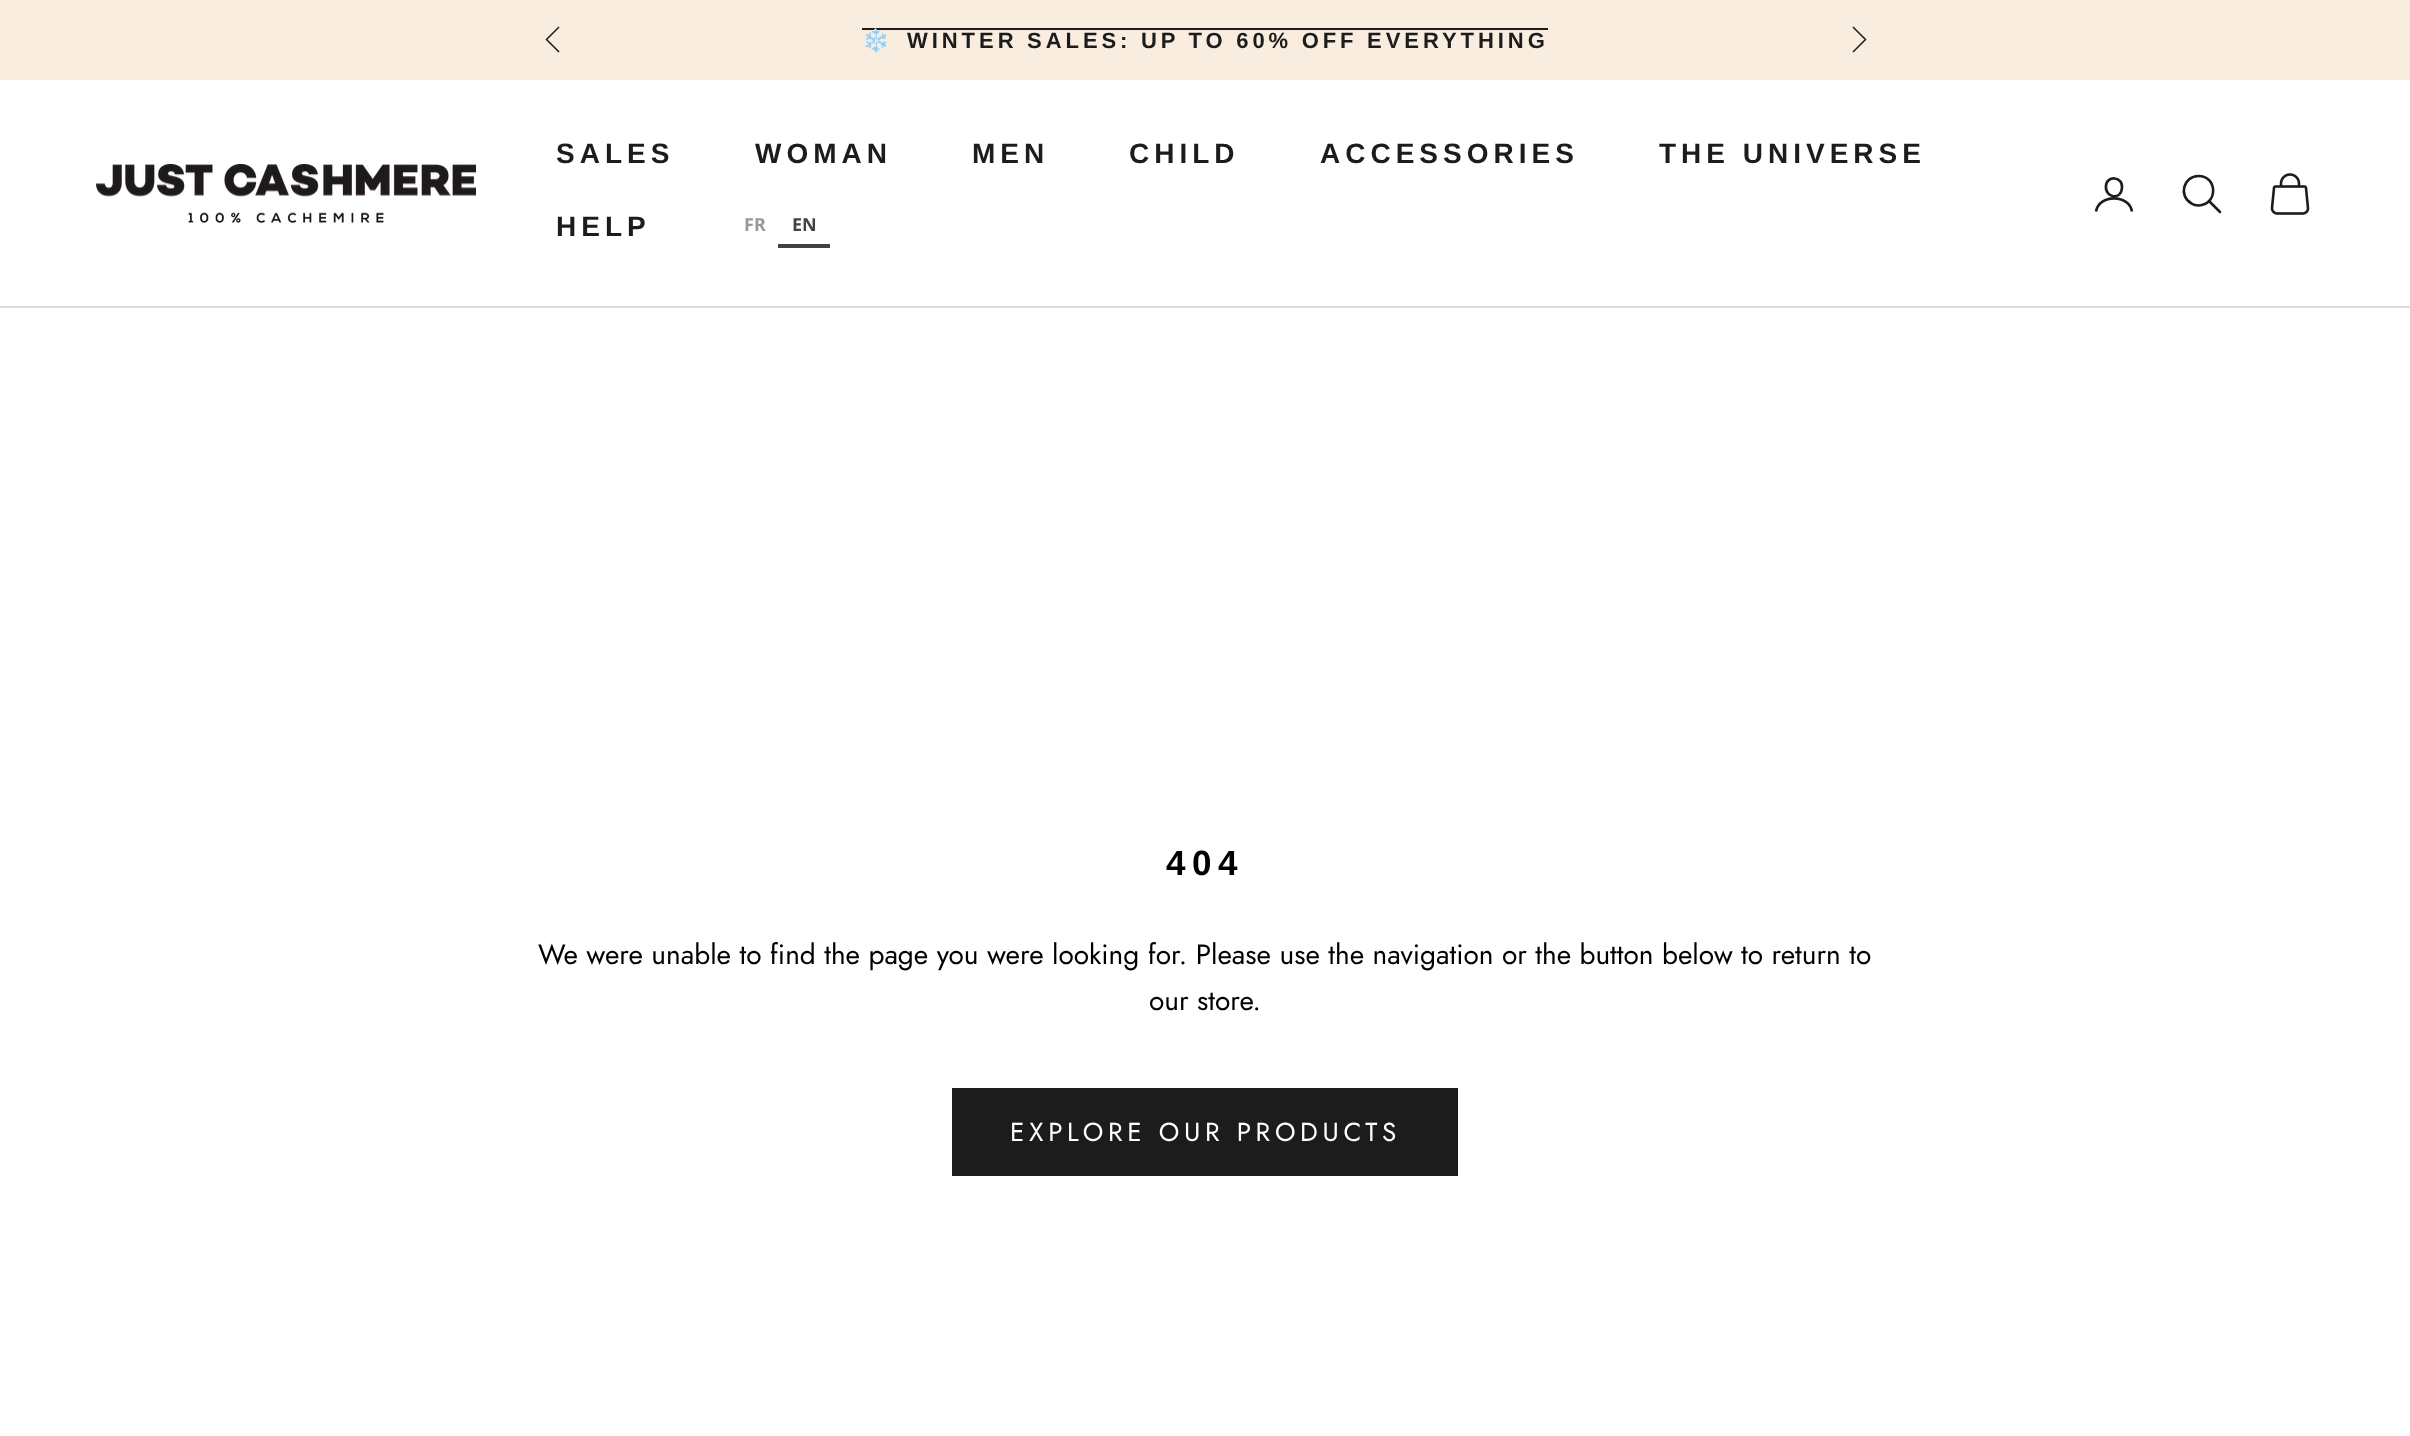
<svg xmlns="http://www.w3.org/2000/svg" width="2410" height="1436">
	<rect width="100%" height="100%" fill="#FFFFFF" />
	<rect x="0" y="0" width="2410" height="80" fill="#F8EDDE" />
	<path d="M558.5 27.5L546.5 39.5L558.5 51.5" fill="none" stroke="#1C1C1C" stroke-width="1.5" stroke-linecap="square" />
	<rect x="862" y="28" width="686" height="2" fill="#1C1C1C" />
	<text x="862" y="48" font-family="Noto Color Emoji" font-size="22" font-weight="700" letter-spacing="3.95" fill="#1C1C1C">❄️</text>
	<text x="907" y="48" word-spacing="-0.5" font-family="Liberation Sans" font-size="22" font-weight="700" letter-spacing="3.95" fill="#1C1C1C">WINTER SALES: UP TO 60% OFF EVERYTHING</text>
	<path d="M1853.5 51.5L1865.5 39.5L1853.5 27.5" fill="none" stroke="#1C1C1C" stroke-width="1.5" stroke-linecap="square" />
	<rect x="0" y="306" width="2410" height="2" fill="#DDDDDD" />
	<image x="96" y="164" width="380" height="59" href="assets/img1.png" />
	<g font-family="Liberation Sans" font-size="28" font-weight="700" letter-spacing="5" fill="#1C1C1C">
		<text x="556" y="163">SALES</text>
		<text x="755" y="163">WOMAN</text>
		<text x="972" y="163">MEN</text>
		<text x="1129" y="163">CHILD</text>
		<text x="1320" y="163">ACCESSORIES</text>
		<text x="1659" y="163">THE UNIVERSE</text>
		<text x="556" y="236">HELP</text>
	</g>
	<text x="744" y="231" font-family="Noto Sans" font-size="18" font-weight="700" fill="#999999">FR</text>
	<text x="792" y="231" font-family="Noto Sans" font-size="18" font-weight="700" fill="#424242">EN</text>
	<rect x="778" y="244" width="52" height="4" fill="#424242" />
	<path d="M2122 187.5C2121.5 201 2104.5 198 2106 185.5C2107 175 2123 176.5 2122 187.5Z" fill="none" stroke="#1C1C1C" stroke-width="2.6" stroke-linecap="round" stroke-linejoin="round" />
	<path d="M2096 211.5C2099 194 2129 194 2132 211.5" fill="none" stroke="#1C1C1C" stroke-width="2.6" />
	<path d="M2198.5 176C2183.5 176 2178 196 2191.5 203.5C2193.5 205 2196 205.5 2198.5 205.5C2218.5 204.5 2217.5 176 2198.5 176Z" fill="none" stroke="#1C1C1C" stroke-width="2.6" />
	<path d="M2209.5 201.5L2220 212" fill="none" stroke="#1C1C1C" stroke-width="2.6" stroke-linecap="round" />
	<image x="2270" y="173" width="40" height="42" href="assets/img2.png" />
	<text x="1166" y="875" font-family="Liberation Sans" font-size="35" font-weight="700" letter-spacing="6.5" fill="#000000">404</text>
	<g font-family="Jost" font-size="28" fill="#000000">
		<text x="538" y="964">We were unable to find the page you were looking for. Please use the navigation or the button below to return to</text>
		<text x="1149" y="1010">our store.</text>
	</g>
	<rect x="953" y="1089" width="504" height="86" fill="#1C1C1C" stroke="#1C1C1C" stroke-width="2" />
	<text x="1010" y="1141" font-family="Jost" font-size="26" letter-spacing="4.7" fill="#FFFFFF">EXPLORE OUR PRODUCTS</text>
</svg>
